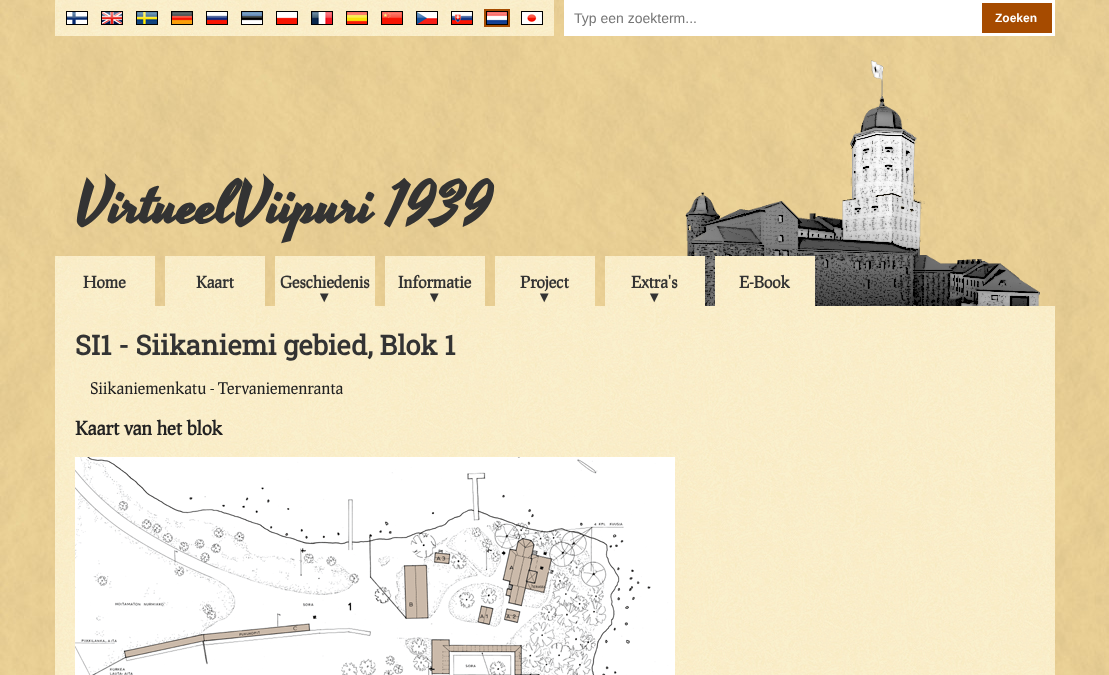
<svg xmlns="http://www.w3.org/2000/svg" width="1109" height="675">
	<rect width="100%" height="100%" fill="#FFFFFF" />
	<image x="0" y="0" width="1109" height="675" href="assets/img1.png" />
	<image x="55" y="0" width="499" height="36" href="assets/img2.png" />
	<rect x="66" y="11" width="22" height="14" fill="#000000" />
	<image x="67" y="12" width="20" height="12" href="assets/img3.png" />
	<rect x="101" y="11" width="22" height="14" fill="#000000" />
	<image x="102" y="12" width="20" height="12" href="assets/img4.png" />
	<rect x="136" y="11" width="22" height="14" fill="#000000" />
	<image x="137" y="12" width="20" height="12" href="assets/img5.png" />
	<rect x="171" y="11" width="22" height="14" fill="#000000" />
	<image x="172" y="12" width="20" height="12" href="assets/img6.png" />
	<rect x="206" y="11" width="22" height="14" fill="#000000" />
	<image x="207" y="12" width="20" height="12" href="assets/img7.png" />
	<rect x="241" y="11" width="22" height="14" fill="#000000" />
	<image x="242" y="12" width="20" height="12" href="assets/img8.png" />
	<rect x="276" y="11" width="22" height="14" fill="#000000" />
	<image x="277" y="12" width="20" height="12" href="assets/img9.png" />
	<rect x="311" y="11" width="22" height="14" fill="#000000" />
	<image x="312" y="12" width="20" height="12" href="assets/img10.png" />
	<rect x="346" y="11" width="22" height="14" fill="#000000" />
	<image x="347" y="12" width="20" height="12" href="assets/img11.png" />
	<rect x="381" y="11" width="22" height="14" fill="#000000" />
	<image x="382" y="12" width="20" height="12" href="assets/img12.png" />
	<rect x="416" y="11" width="22" height="14" fill="#000000" />
	<image x="417" y="12" width="20" height="12" href="assets/img13.png" />
	<rect x="451" y="11" width="22" height="14" fill="#000000" />
	<image x="452" y="12" width="20" height="12" href="assets/img14.png" />
	<rect x="485" y="10" width="24" height="16" fill="#000000" stroke="#A64B00" stroke-width="2" />
	<image x="487" y="12" width="20" height="12" href="assets/img15.png" />
	<rect x="521" y="11" width="22" height="14" fill="#000000" />
	<image x="522" y="12" width="20" height="12" href="assets/img16.png" />
	<rect x="564" y="0" width="491" height="36" fill="#FFFFFF" />
	<text x="574" y="23" font-family="Liberation Sans" font-size="14" fill="#757575">Typ een zoekterm...</text>
	<rect x="982" y="3" width="70" height="30" fill="#A64B00" />
	<text x="995" y="22" font-family="Liberation Sans" font-size="12" font-weight="700" fill="#FFFFFF">Zoeken</text>
	<image x="685" y="60" width="355" height="246" href="assets/img17.png" />
	<text x="75" y="222" font-family="Yesteryear" font-size="60" font-weight="700" fill="#333333">VirtueelViipuri 1939</text>
	<image x="55" y="256" width="100" height="50" href="assets/img18.png" />
	<text x="83" y="288" font-family="Prociono" font-size="16" font-weight="700" fill="#333333">Home</text>
	<image x="165" y="256" width="100" height="50" href="assets/img18.png" />
	<text x="196" y="288" font-family="Prociono" font-size="16" font-weight="700" fill="#333333">Kaart</text>
	<image x="275" y="256" width="100" height="50" href="assets/img18.png" />
	<text x="280" y="288" font-family="Prociono" font-size="16" font-weight="700" fill="#333333">Geschiedenis</text>
	<text x="320" y="302" font-family="DejaVu Sans" font-size="16" font-weight="700" fill="#333333">▾</text>
	<image x="385" y="256" width="100" height="50" href="assets/img18.png" />
	<text x="398" y="288" font-family="Prociono" font-size="16" font-weight="700" fill="#333333">Informatie</text>
	<text x="430" y="302" font-family="DejaVu Sans" font-size="16" font-weight="700" fill="#333333">▾</text>
	<image x="495" y="256" width="100" height="50" href="assets/img18.png" />
	<text x="520" y="288" font-family="Prociono" font-size="16" font-weight="700" fill="#333333">Project</text>
	<text x="540" y="302" font-family="DejaVu Sans" font-size="16" font-weight="700" fill="#333333">▾</text>
	<image x="605" y="256" width="100" height="50" href="assets/img18.png" />
	<text x="631" y="288" font-family="Prociono" font-size="16" font-weight="700" fill="#333333">Extra's</text>
	<text x="650" y="302" font-family="DejaVu Sans" font-size="16" font-weight="700" fill="#333333">▾</text>
	<image x="715" y="256" width="100" height="50" href="assets/img18.png" />
	<text x="739" y="288" font-family="Prociono" font-size="16" font-weight="700" fill="#333333">E-Book</text>
	<image x="55" y="306" width="1000" height="369" href="assets/img19.png" />
	<text x="75" y="355" font-family="Roboto Slab" font-size="27.25" font-weight="700" fill="#333333">SI1 - Siikaniemi gebied, Blok 1</text>
	<text x="90" y="394" font-family="Prociono" font-size="16" fill="#222222">Siikaniemenkatu - Tervaniemenranta</text>
	<text x="75" y="435" font-family="Prociono" font-size="18.75" font-weight="700" fill="#222222">Kaart van het blok</text>
	<image x="75" y="457" width="600" height="218" href="assets/img20.png" />
</svg>
